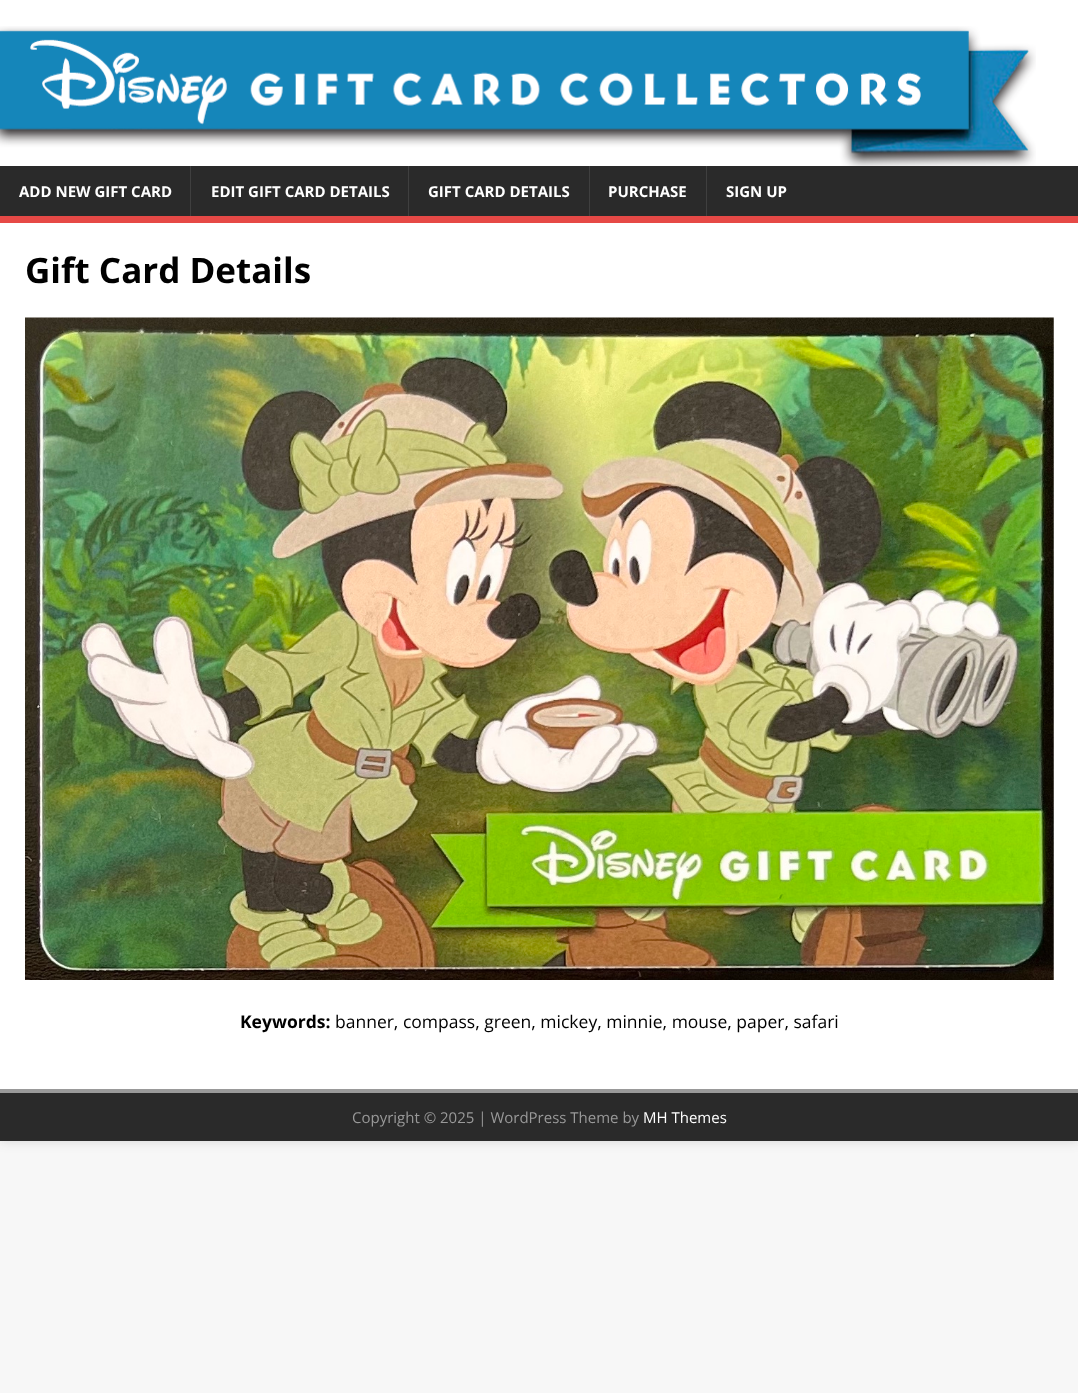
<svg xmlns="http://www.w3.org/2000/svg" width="1078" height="1393">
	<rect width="100%" height="100%" fill="#F7F7F7" />
	<rect x="0" y="0" width="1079" height="1141" fill="#323232" fill-opacity="0.17" filter="blur(6px)" />
	<rect x="0" y="0" width="1078" height="166" fill="#FFFFFF" />
	<image x="0" y="26" width="1036" height="140" href="assets/img1.png" />
	<rect x="0" y="166" width="1078" height="50" fill="#2A2A2A" />
	<rect x="0" y="216" width="1078" height="7" fill="#E64946" />
	<text x="19" y="197" font-family="Open Sans" font-size="15" font-weight="700" fill="#FFFFFF">ADD NEW GIFT CARD</text>
	<rect x="190" y="166" width="1" height="50" fill="#3F3F3F" />
	<text x="211" y="197" font-family="Open Sans" font-size="15" font-weight="700" fill="#FFFFFF">EDIT GIFT CARD DETAILS</text>
	<rect x="408" y="166" width="1" height="50" fill="#3F3F3F" />
	<text x="428" y="197" font-family="Open Sans" font-size="15" font-weight="700" fill="#FFFFFF">GIFT CARD DETAILS</text>
	<rect x="589" y="166" width="1" height="50" fill="#3F3F3F" />
	<text x="608" y="197" font-family="Open Sans" font-size="15" font-weight="700" fill="#FFFFFF">PURCHASE</text>
	<rect x="706" y="166" width="1" height="50" fill="#3F3F3F" />
	<text x="726" y="197" font-family="Open Sans" font-size="15" font-weight="700" fill="#FFFFFF">SIGN UP</text>
	<rect x="0" y="223" width="1078" height="866" fill="#FFFFFF" />
	<text x="25" y="283" font-family="Open Sans" font-size="35" font-weight="700" fill="#000000">Gift Card Details</text>
	<image x="25" y="317" width="1029" height="663" href="assets/img2.png" />
	<text x="240" y="1028" font-family="Open Sans" font-size="17.5" font-weight="700" fill="#000000">Keywords:</text>
	<text x="335" y="1028" font-family="Open Sans" font-size="17.5" fill="#000000">banner, compass, green, mickey, minnie, mouse, paper, safari</text>
	<rect x="0" y="1093" width="1078" height="48" fill="#2A2A2A" />
	<rect x="0" y="1089" width="1078" height="4" fill="#999999" />
	<text x="352" y="1123" font-family="Open Sans" font-size="15" fill="#999999">Copyright © 2025 | WordPress Theme by</text>
	<text x="643" y="1123" font-family="Open Sans" font-size="15" fill="#FFFFFF">MH Themes</text>
</svg>
